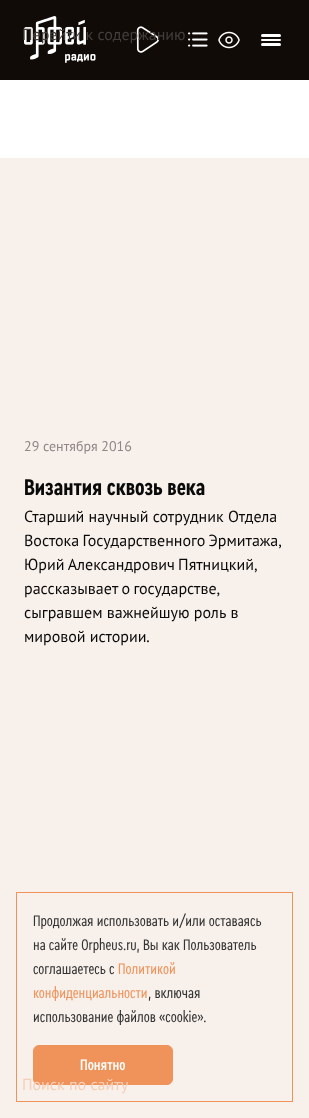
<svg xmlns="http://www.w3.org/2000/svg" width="309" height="1118">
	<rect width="100%" height="100%" fill="#F7F0EB" />
	<rect x="0" y="0" width="309" height="80" fill="#110B08" />
	<image x="24" y="16" width="72" height="47" href="assets/img1.png" />
	<image x="218" y="31" width="22" height="18" href="assets/img2.png" />
	<rect x="261" y="34" width="20" height="3" rx="1.5" fill="#FFFFFF" />
	<rect x="261" y="39" width="20" height="2" rx="1" fill="#FFFFFF" />
	<rect x="261" y="43" width="20" height="3" rx="1.5" fill="#FFFFFF" />
	<image x="136" y="26" width="23" height="27" href="assets/img3.png" />
	<image x="188" y="32" width="20" height="15" href="assets/img4.png" />
	<text x="22" y="40" font-family="PT Sans" font-size="16" fill="#423E3B">Перейти к содержанию</text>
	<rect x="0" y="80" width="309" height="78" fill="#FFFFFF" />
	<text x="24" y="451" font-family="PT Sans" font-size="14" fill="#908686">29 сентября 2016</text>
	<text x="24" y="495" font-family="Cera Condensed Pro" font-size="24" font-weight="700" fill="#0B0A0A">Византия сквозь века</text>
	<g font-family="PT Sans" font-size="16" fill="#0B0A0A">
		<text x="24" y="522">Старший научный сотрудник Отдела</text>
		<text x="24" y="546" word-spacing="-1">Востока Государственного Эрмитажа,</text>
		<text x="24" y="570" word-spacing="-1">Юрий Александрович Пятницкий,</text>
		<text x="24" y="594" word-spacing="-1">рассказывает о государстве,</text>
		<text x="24" y="618">сыгравшем важнейшую роль в</text>
		<text x="24" y="642">мировой истории.</text>
	</g>
	<rect x="16.5" y="892.5" width="276" height="209" fill="none" stroke="#F0935B" />
	<g font-family="Cera Condensed Pro" font-size="16" fill="#343434">
		<text x="33" y="926">Продолжая использовать и/или оставаясь</text>
		<text x="33" y="950">на сайте Orpheus.ru, Вы как Пользователь</text>
		<text x="33" y="974">соглашаетесь с</text>
	</g>
	<g font-family="Cera Condensed Pro" font-size="16" fill="#F0935B">
		<text x="118" y="974">Политикой</text>
		<text x="33" y="998">конфиденциальности</text>
	</g>
	<g font-family="Cera Condensed Pro" font-size="16" fill="#343434">
		<text x="148" y="998">, включая</text>
		<text x="33" y="1022">использование файлов «cookie».</text>
	</g>
	<rect x="33.5" y="1045.5" width="139" height="39" rx="5.5" fill="#F0935B" stroke="#F0935B" />
	<text x="80" y="1070" font-family="Cera Condensed Pro" font-size="16" font-weight="500" fill="#FFFFFF">Понятно</text>
	<text x="22" y="1090" font-family="PT Sans" font-size="16" fill="#F5CFB8">Поиск по сайту</text>
</svg>
